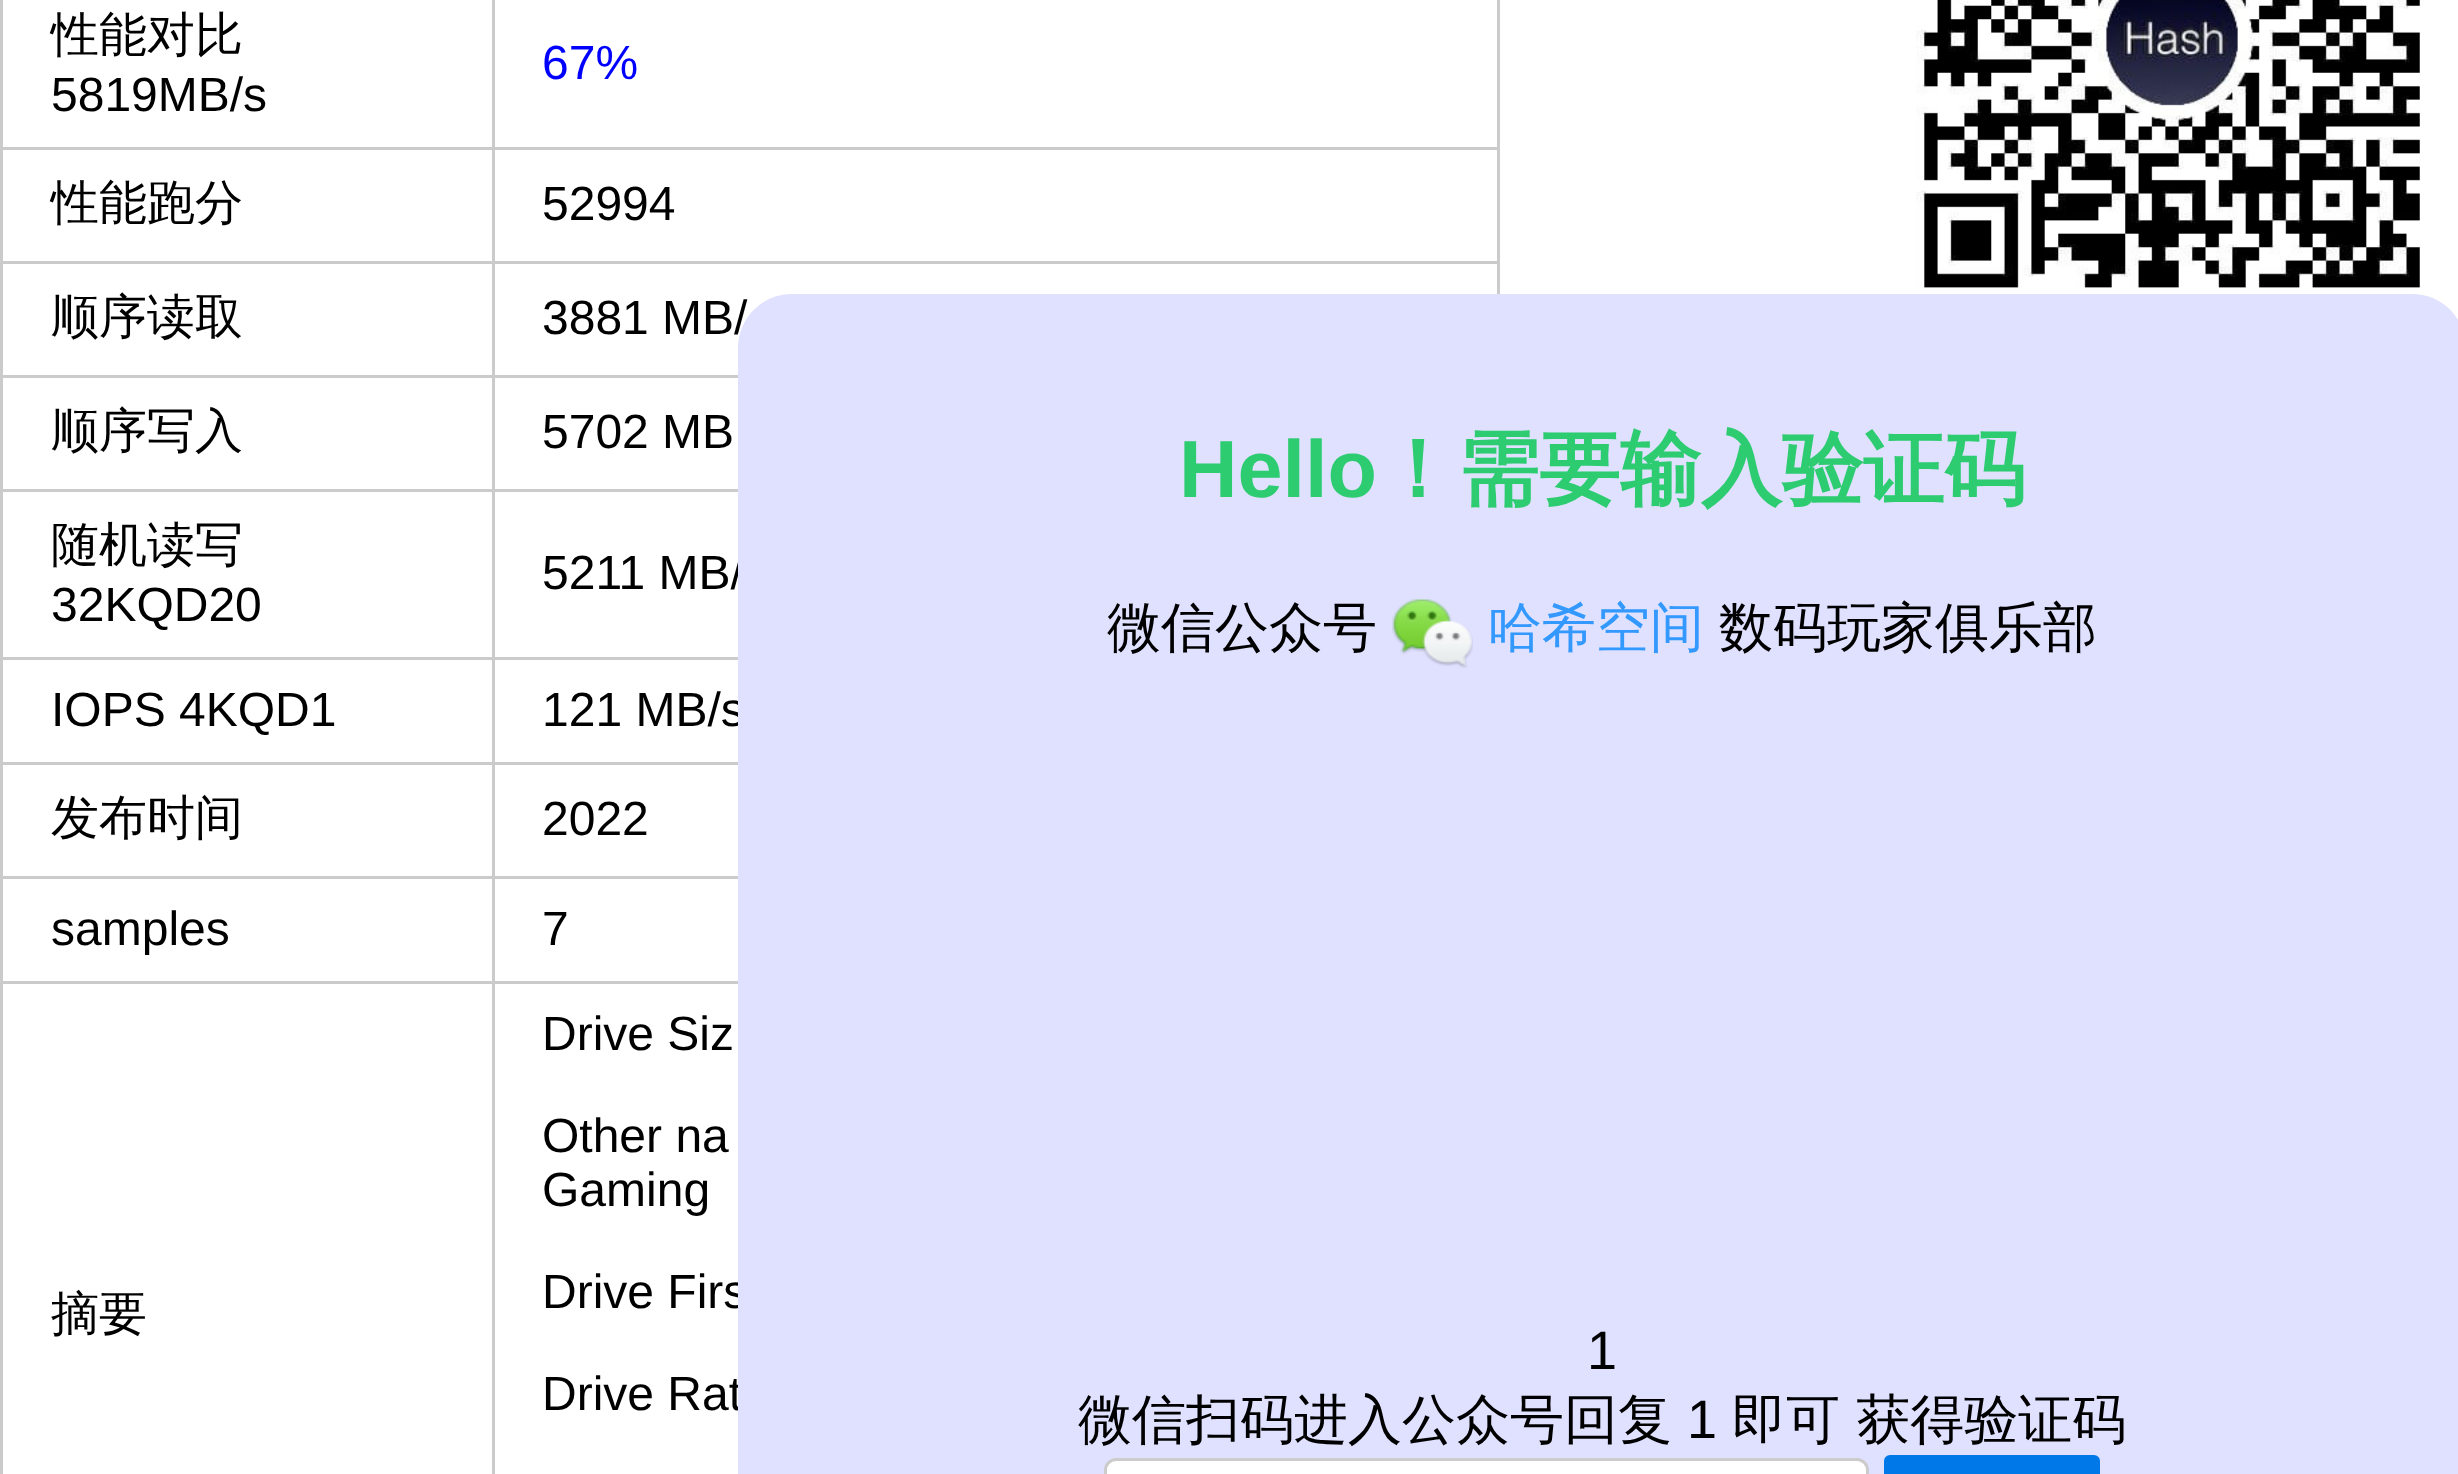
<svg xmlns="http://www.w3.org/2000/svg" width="2458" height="1474">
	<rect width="100%" height="100%" fill="#FFFFFF" />
	<rect x="1497" y="0" width="3" height="294" fill="#CBCBCB" />
	<rect x="0" y="0" width="3" height="1474" fill="#CBCBCB" />
	<rect x="492" y="981" width="3" height="493" fill="#CBCBCB" />
	<rect x="492" y="981" width="246" height="3" fill="#CBCBCB" />
	<rect x="492" y="876" width="3" height="108" fill="#CBCBCB" />
	<rect x="492" y="876" width="246" height="3" fill="#CBCBCB" />
	<rect x="492" y="762" width="3" height="117" fill="#CBCBCB" />
	<rect x="492" y="762" width="246" height="3" fill="#CBCBCB" />
	<rect x="492" y="657" width="3" height="108" fill="#CBCBCB" />
	<rect x="492" y="657" width="246" height="3" fill="#CBCBCB" />
	<rect x="492" y="489" width="3" height="171" fill="#CBCBCB" />
	<rect x="492" y="489" width="246" height="3" fill="#CBCBCB" />
	<rect x="492" y="375" width="3" height="117" fill="#CBCBCB" />
	<rect x="492" y="375" width="246" height="3" fill="#CBCBCB" />
	<rect x="492" y="261" width="3" height="117" fill="#CBCBCB" />
	<rect x="492" y="261" width="1008" height="3" fill="#CBCBCB" />
	<rect x="492" y="147" width="3" height="117" fill="#CBCBCB" />
	<rect x="492" y="147" width="1008" height="3" fill="#CBCBCB" />
	<rect x="492" y="0" width="3" height="150" fill="#CBCBCB" />
	<rect x="0" y="147" width="495" height="3" fill="#CBCBCB" />
	<text x="51" y="51" font-family="WenQuanYi Zen Hei" font-size="48" font-weight="500" fill="#000000">性能对比</text>
	<text x="51" y="111" font-family="Liberation Sans" font-size="48" fill="#000000">5819MB/s</text>
	<text x="542" y="79" font-family="Liberation Sans" font-size="48" fill="#0000FF">67%</text>
	<rect x="0" y="261" width="495" height="3" fill="#CBCBCB" />
	<text x="51" y="219" font-family="WenQuanYi Zen Hei" font-size="48" font-weight="500" fill="#000000">性能跑分</text>
	<text x="542" y="220" font-family="Liberation Sans" font-size="48" fill="#000000">52994</text>
	<rect x="0" y="375" width="495" height="3" fill="#CBCBCB" />
	<text x="51" y="333" font-family="WenQuanYi Zen Hei" font-size="48" font-weight="500" fill="#000000">顺序读取</text>
	<text x="542" y="334" font-family="Liberation Sans" font-size="48" fill="#000000">3881 MB/</text>
	<rect x="0" y="489" width="495" height="3" fill="#CBCBCB" />
	<text x="51" y="447" font-family="WenQuanYi Zen Hei" font-size="48" font-weight="500" fill="#000000">顺序写入</text>
	<text x="542" y="448" font-family="Liberation Sans" font-size="48" fill="#000000">5702 MB</text>
	<rect x="0" y="657" width="495" height="3" fill="#CBCBCB" />
	<text x="51" y="561" font-family="WenQuanYi Zen Hei" font-size="48" font-weight="500" fill="#000000">随机读写</text>
	<g font-family="Liberation Sans" font-size="48" fill="#000000">
		<text x="51" y="621">32KQD20</text>
		<text x="542" y="589">5211 MB/</text>
	</g>
	<rect x="0" y="762" width="495" height="3" fill="#CBCBCB" />
	<g font-family="Liberation Sans" font-size="48" fill="#000000">
		<text x="51" y="726">IOPS 4KQD1</text>
		<text x="542" y="726">121 MB/s</text>
	</g>
	<rect x="0" y="876" width="495" height="3" fill="#CBCBCB" />
	<text x="51" y="834" font-family="WenQuanYi Zen Hei" font-size="48" font-weight="500" fill="#000000">发布时间</text>
	<text x="542" y="835" font-family="Liberation Sans" font-size="48" fill="#000000">2022</text>
	<rect x="0" y="981" width="495" height="3" fill="#CBCBCB" />
	<g font-family="Liberation Sans" font-size="48" fill="#000000">
		<text x="51" y="945">samples</text>
		<text x="542" y="945">7</text>
	</g>
	<text x="51" y="1330" font-family="WenQuanYi Zen Hei" font-size="48" font-weight="500" fill="#000000">摘要</text>
	<g font-family="Liberation Sans" font-size="48" fill="#000000">
		<text x="542" y="1050">Drive Siz</text>
		<text x="542" y="1152">Other na</text>
		<text x="542" y="1206">Gaming</text>
		<text x="542" y="1308">Drive Firs</text>
		<text x="542" y="1410">Drive Rat</text>
	</g>
	<image x="1916" y="0" width="504" height="295" href="assets/img1.png" />
	<rect x="738" y="294" width="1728" height="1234" rx="54" fill="#DFE1FF" />
	<text x="1179" y="497" font-family="Liberation Sans" font-size="81" font-weight="700" fill="#2ECC71">Hello</text>
	<text x="1377" y="497" font-family="WenQuanYi Zen Hei" font-size="81" font-weight="700" fill="#2ECC71">！需要输入验证码</text>
	<text x="1107" y="646" font-family="WenQuanYi Zen Hei" font-size="54" font-weight="500" fill="#000000">微信公众号</text>
	<image x="1392" y="599" width="81" height="69" href="assets/img2.png" />
	<text x="1488" y="646" font-family="WenQuanYi Zen Hei" font-size="54" font-weight="500" fill="#3399FF">哈希空间</text>
	<text x="1719" y="646" font-family="WenQuanYi Zen Hei" font-size="54" font-weight="500" fill="#000000">数码玩家俱乐部</text>
	<text x="1587" y="1369" font-family="Liberation Sans" font-size="54" fill="#000000">1</text>
	<text x="1078" y="1438" font-family="WenQuanYi Zen Hei" font-size="54" font-weight="500" fill="#000000">微信扫码进入公众号回复</text>
	<text x="1687" y="1438" font-family="Liberation Sans" font-size="54" fill="#000000">1</text>
	<text x="1732" y="1438" font-family="WenQuanYi Zen Hei" font-size="54" font-weight="500" fill="#000000">即可 获得验证码</text>
	<rect x="1105.5" y="1459.5" width="762" height="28" rx="10.5" fill="#FFFFFF" stroke="#CCCCCC" stroke-width="3" />
	<rect x="1884" y="1455" width="216" height="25" rx="6" fill="#0078E7" />
</svg>
